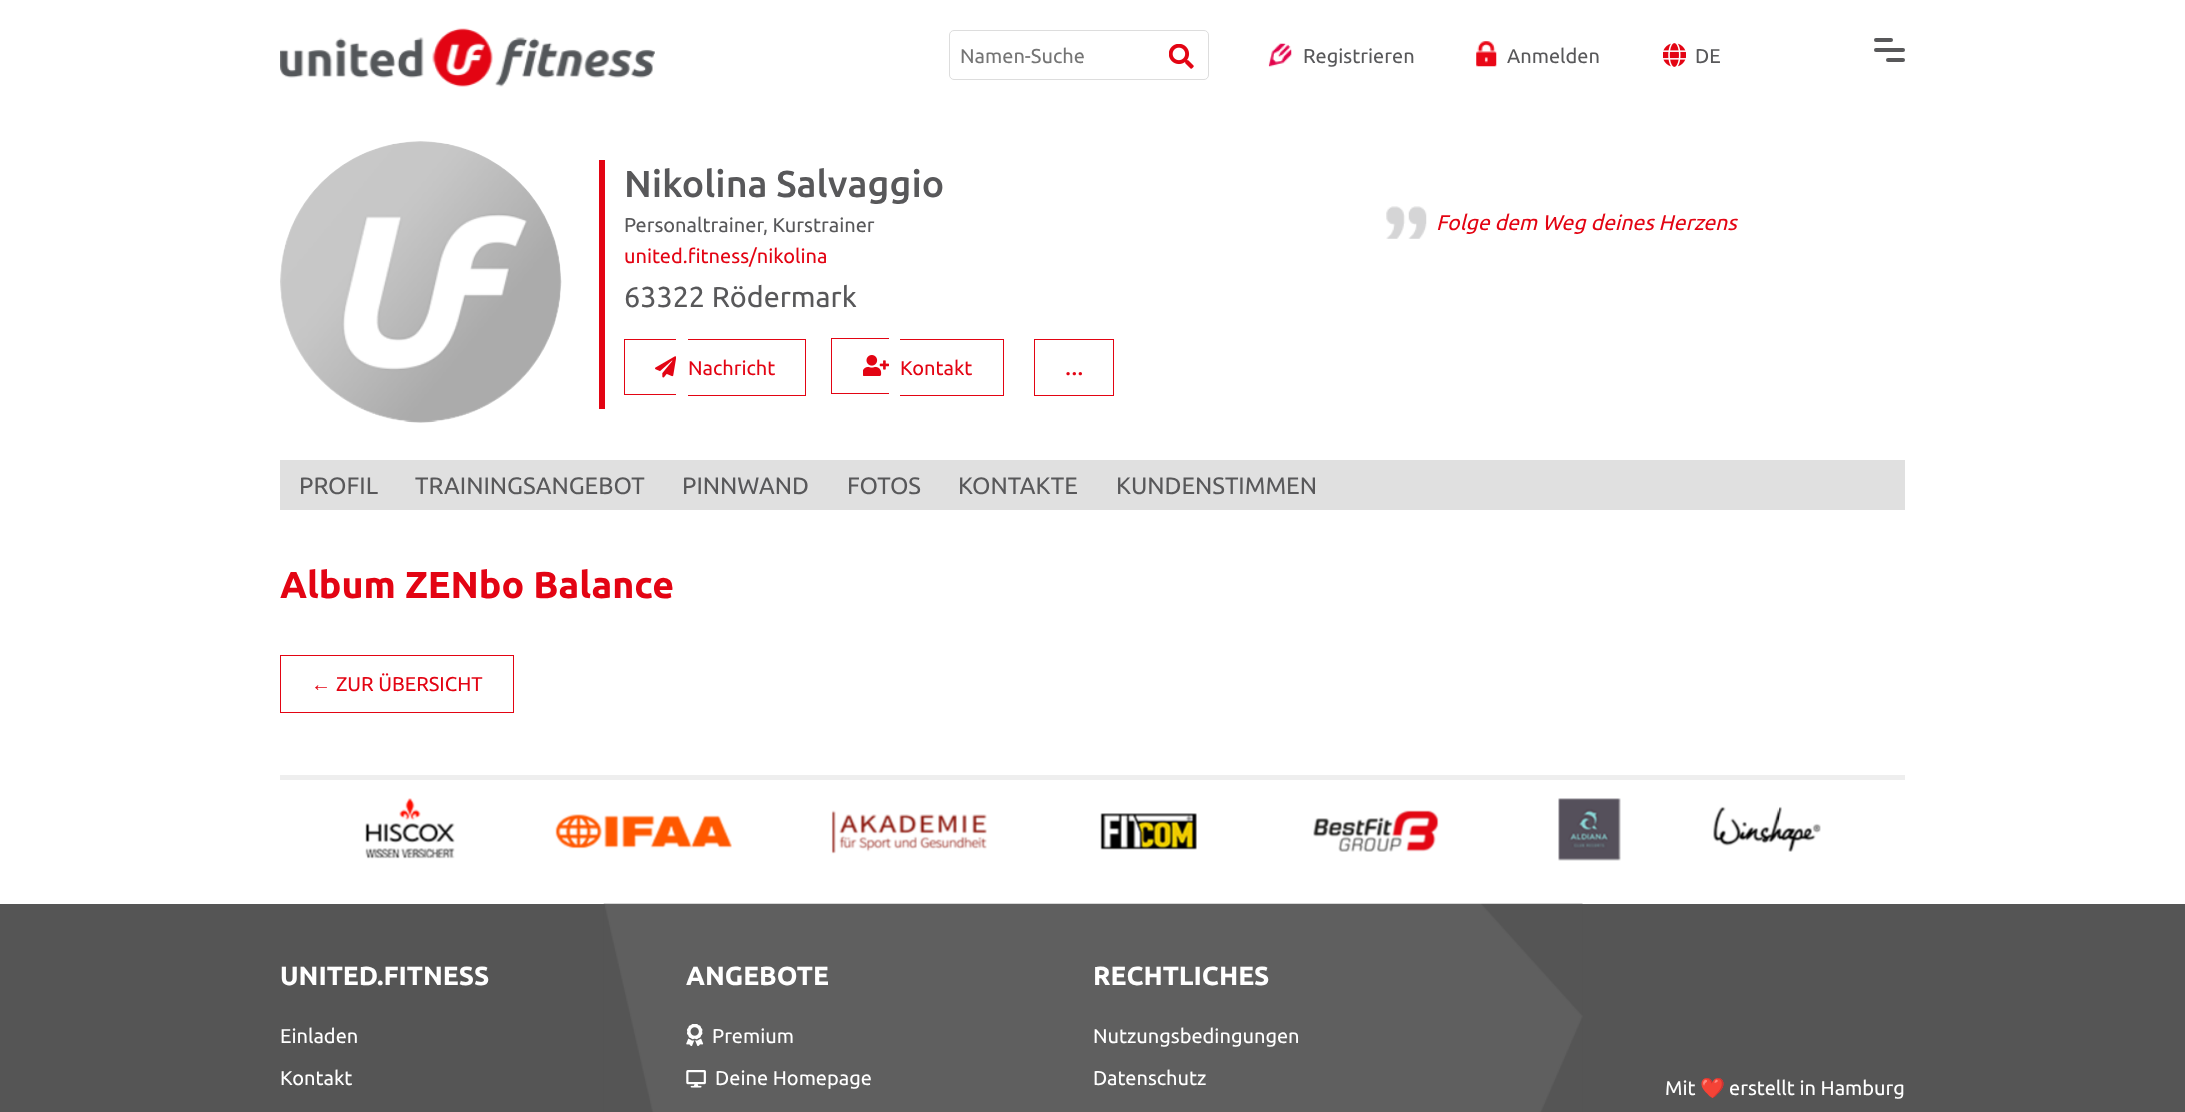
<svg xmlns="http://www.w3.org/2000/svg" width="2185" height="1112">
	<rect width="100%" height="100%" fill="#FFFFFF" />
	<image x="280" y="28" width="375" height="59" href="assets/img1.png" />
	<rect x="949.5" y="30.5" width="259" height="49" rx="4.5" fill="none" stroke="#DDDDDD" />
	<text x="960" y="63" font-family="Ubuntu" font-size="20" fill="#757575">Namen-Suche</text>
	<image x="1169" y="44" width="25" height="25" href="assets/img2.png" />
	<image x="1268" y="43" width="24" height="24" href="assets/img3.png" />
	<text x="1303" y="63" font-family="Ubuntu" font-size="20" fill="#58585A">Registrieren</text>
	<image x="1476" y="41" width="21" height="26" href="assets/img4.png" />
	<text x="1507" y="63" font-family="Ubuntu" font-size="20" fill="#58585A">Anmelden</text>
	<image x="1663" y="43" width="23" height="24" href="assets/img5.png" />
	<text x="1695" y="63" font-family="Ubuntu" font-size="20" fill="#58585A">DE</text>
	<rect x="1874" y="38" width="19" height="4" rx="2" fill="#58585A" />
	<rect x="1874" y="48" width="31" height="4" rx="2" fill="#58585A" />
	<rect x="1886" y="58" width="19" height="4" rx="2" fill="#58585A" />
	<image x="280" y="141" width="282" height="282" href="assets/img6.png" />
	<rect x="599" y="160" width="6" height="249" fill="#E30413" />
	<text x="624" y="197" font-family="Ubuntu" font-size="37.5" font-weight="500" fill="#58585A">Nikolina Salvaggio</text>
	<text x="624" y="232" font-family="Ubuntu" font-size="20" fill="#58585A">Personaltrainer, Kurstrainer</text>
	<text x="624" y="263" font-family="Ubuntu" font-size="20" fill="#E30413">united.fitness/nikolina</text>
	<text x="624" y="307" font-family="Ubuntu" font-size="28.75" fill="#58585A">63322 Rödermark</text>
	<image x="655" y="356" width="21" height="22" href="assets/img7.png" />
	<text x="688" y="375" font-family="Ubuntu" font-size="20" fill="#E30413">Nachricht</text>
	<rect x="624" y="339" width="52" height="1" fill="#E30413" />
	<rect x="624" y="394" width="52" height="1" fill="#E30413" />
	<rect x="624" y="339" width="1" height="56" fill="#E30413" />
	<rect x="688" y="339" width="118" height="1" fill="#E30413" />
	<rect x="805" y="339" width="1" height="57" fill="#E30413" />
	<rect x="688" y="395" width="118" height="1" fill="#E30413" />
	<image x="863" y="355" width="26" height="21" href="assets/img8.png" />
	<text x="900" y="375" font-family="Ubuntu" font-size="20" fill="#E30413">Kontakt</text>
	<rect x="831" y="338" width="58" height="1" fill="#E30413" />
	<rect x="831" y="393" width="58" height="1" fill="#E30413" />
	<rect x="831" y="338" width="1" height="56" fill="#E30413" />
	<rect x="900" y="339" width="104" height="1" fill="#E30413" />
	<rect x="1003" y="339" width="1" height="57" fill="#E30413" />
	<rect x="900" y="395" width="104" height="1" fill="#E30413" />
	<rect x="1034.5" y="339.5" width="79" height="56" fill="none" stroke="#E30413" />
	<text x="1065" y="375" font-family="Ubuntu" font-size="25" fill="#E30413">...</text>
	<image x="1386" y="206" width="41" height="33" href="assets/img9.png" />
	<text x="1436" y="230" font-family="Ubuntu" font-size="21.25" font-style="italic" fill="#E30413">Folge dem Weg deines Herzens</text>
	<rect x="280" y="460" width="1625" height="50" fill="#E0E0E0" />
	<g font-family="Ubuntu" font-size="23.75" fill="#58585A">
		<text x="299" y="494">PROFIL</text>
		<text x="415" y="494">TRAININGSANGEBOT</text>
		<text x="682" y="494">PINNWAND</text>
		<text x="847" y="494">FOTOS</text>
		<text x="958" y="494">KONTAKTE</text>
		<text x="1116" y="494">KUNDENSTIMMEN</text>
	</g>
	<text x="280" y="598" font-family="Ubuntu" font-size="37.5" font-weight="700" fill="#E30413">Album ZENbo Balance</text>
	<rect x="280.5" y="655.5" width="233" height="57" fill="none" stroke="#E30413" />
	<text x="311" y="691" font-family="Liberation Sans" font-size="20" fill="#E30413">←</text>
	<text x="336" y="691" font-family="Ubuntu" font-size="20" fill="#E30413">ZUR ÜBERSICHT</text>
	<rect x="280" y="775" width="1625" height="5" fill="#EEEEEE" />
	<image x="365" y="798" width="1456" height="63" href="assets/img10.png" />
	<rect x="0" y="904" width="2185" height="208" fill="#555555" />
	<image x="603" y="903" width="980" height="209" href="assets/img11.png" />
	<text x="280" y="985" font-family="Ubuntu" font-size="26.25" font-weight="700" fill="#FFFFFF">UNITED.FITNESS</text>
	<g font-family="Ubuntu" font-size="20" fill="#FFFFFF">
		<text x="280" y="1043">Einladen</text>
		<text x="280" y="1085">Kontakt</text>
	</g>
	<text x="686" y="985" font-family="Ubuntu" font-size="26.25" font-weight="700" fill="#FFFFFF">ANGEBOTE</text>
	<image x="686" y="1024" width="18" height="22" href="assets/img12.png" />
	<text x="712" y="1043" font-family="Ubuntu" font-size="20" fill="#FFFFFF">Premium</text>
	<image x="686" y="1070" width="20" height="18" href="assets/img13.png" />
	<text x="715" y="1085" font-family="Ubuntu" font-size="20" fill="#FFFFFF">Deine Homepage</text>
	<text x="1093" y="985" font-family="Ubuntu" font-size="26.25" font-weight="700" fill="#FFFFFF">RECHTLICHES</text>
	<g font-family="Ubuntu" font-size="20" fill="#FFFFFF">
		<text x="1093" y="1043">Nutzungsbedingungen</text>
		<text x="1093" y="1085">Datenschutz</text>
		<text x="1665" y="1095">Mit</text>
	</g>
	<text x="1700" y="1095" font-family="Noto Color Emoji" font-size="20" fill="#FFFFFF">❤️</text>
	<text x="1729" y="1095" font-family="Ubuntu" font-size="20" fill="#FFFFFF">erstellt in Hamburg</text>
</svg>
